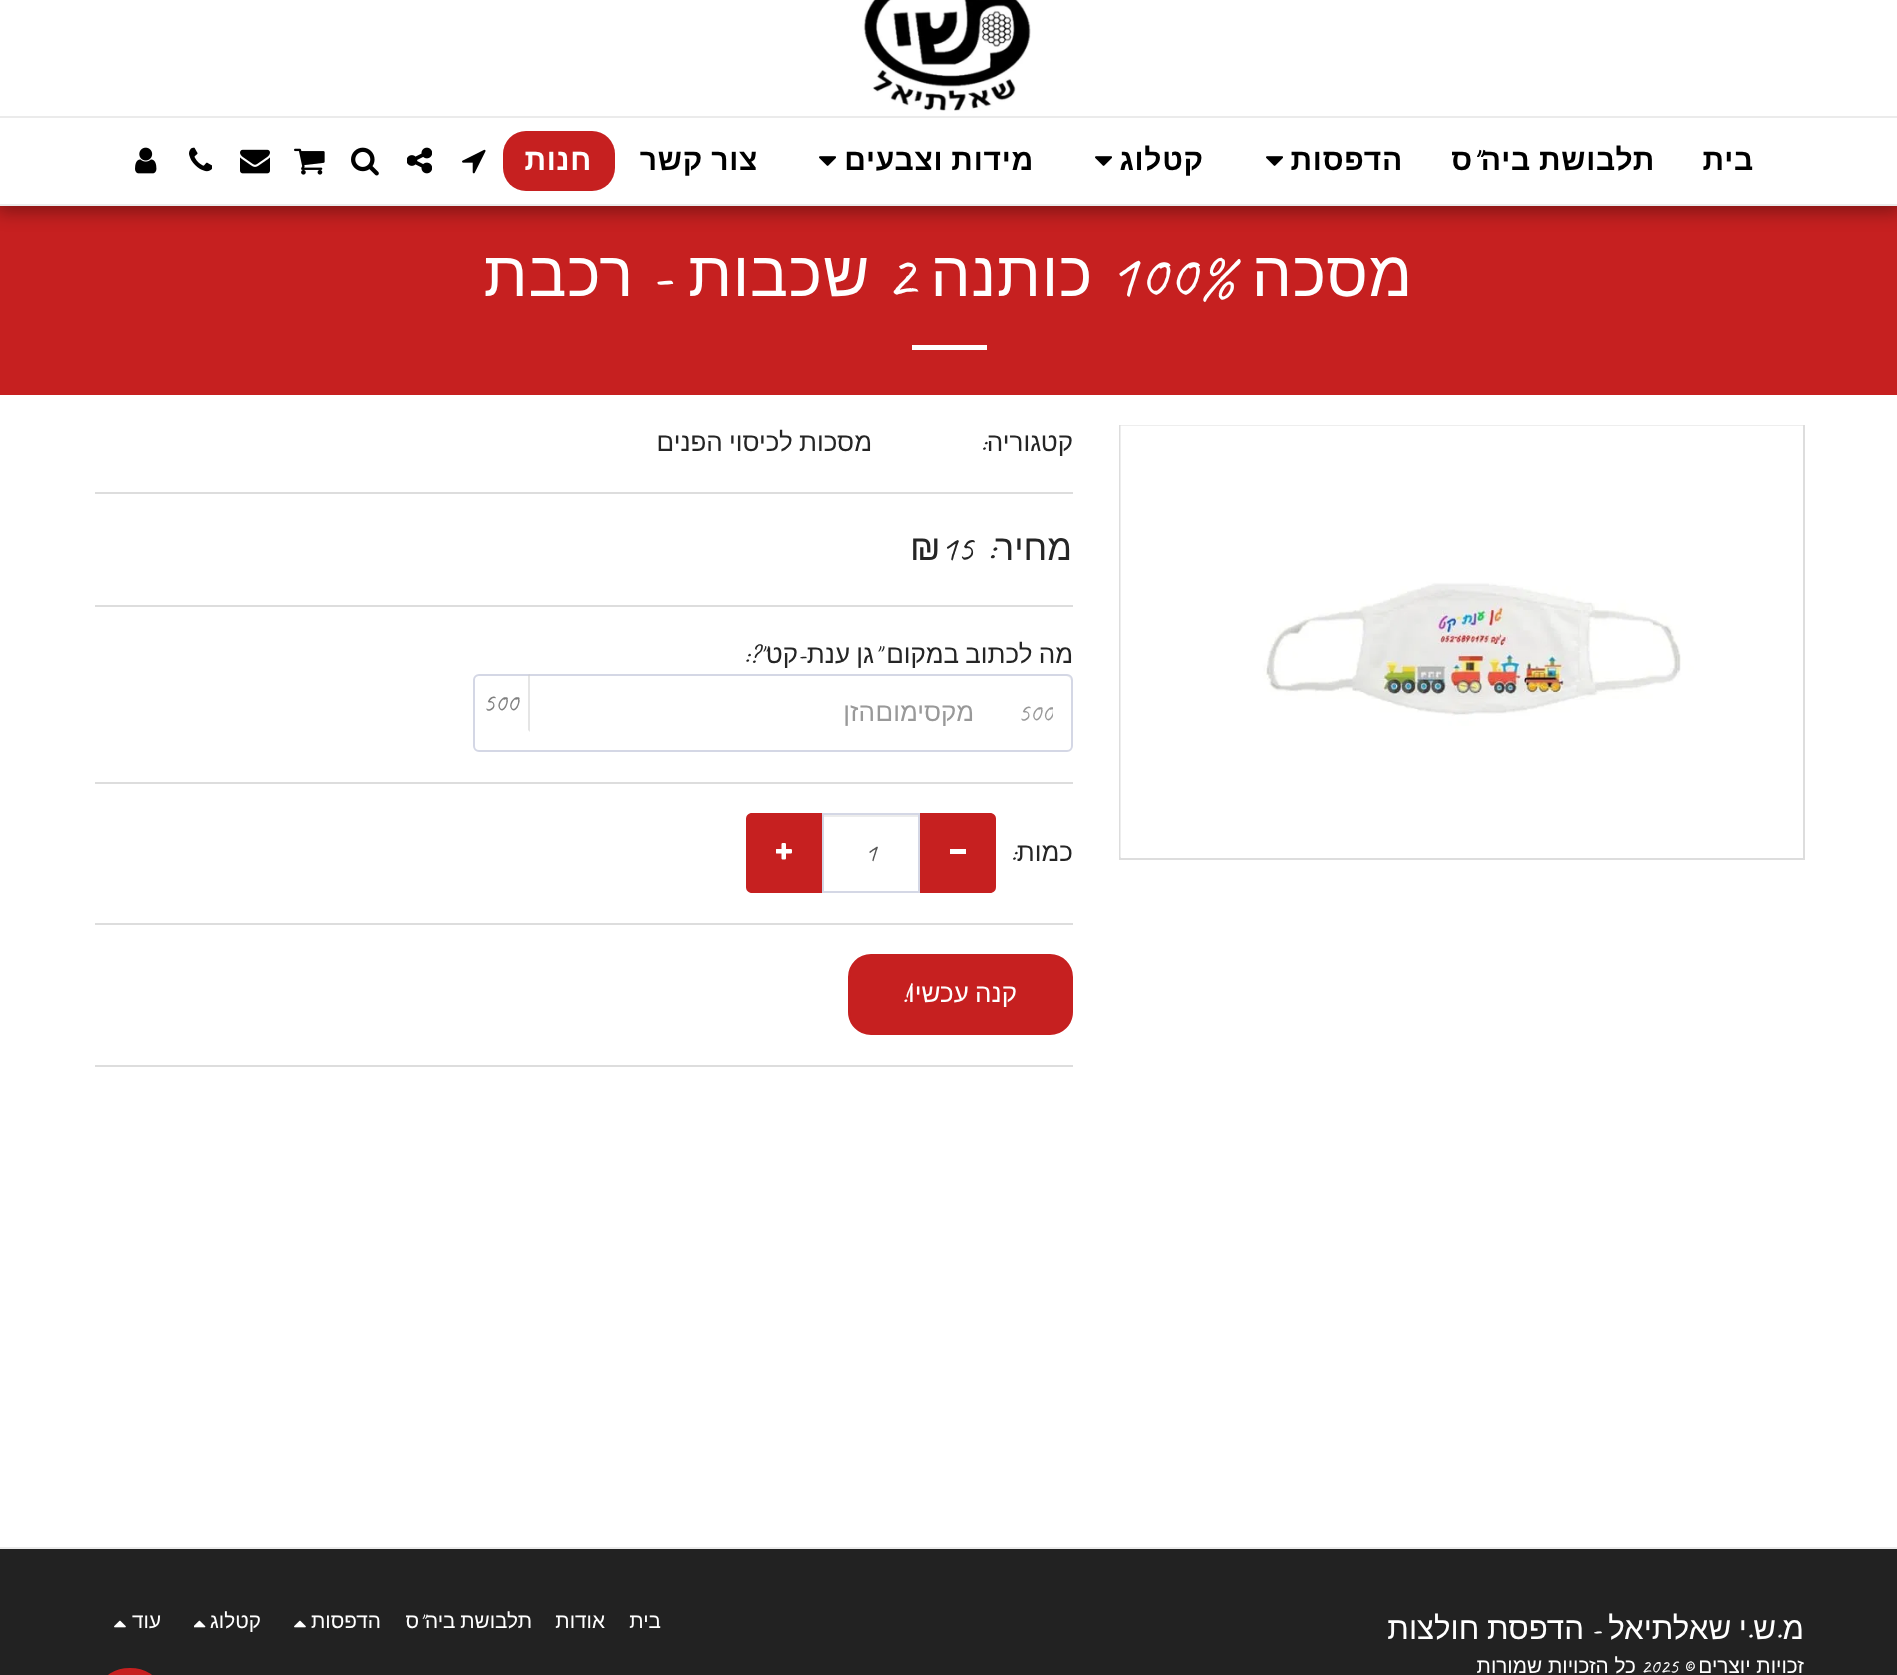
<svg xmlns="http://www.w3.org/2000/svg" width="1897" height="1675">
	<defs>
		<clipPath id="clip1"><rect x="534" y="696" width="519" height="33" /></clipPath>
	</defs>
	<rect width="100%" height="100%" fill="#FFFFFF" />
	<rect x="0" y="206" width="1897" height="189" fill="#C62020" />
	<rect x="-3" y="-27" width="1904" height="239" fill="#000000" fill-opacity="0.35" filter="blur(9px)" />
	<rect x="0" y="204" width="1897" height="2" fill="#EBEBEB" />
	<rect x="0" y="0" width="1897" height="116" fill="#FFFFFF" />
	<image x="863" y="0" width="168" height="111" href="assets/img1.png" />
	<rect x="0" y="118" width="1897" height="86" fill="#FFFFFF" />
	<rect x="0" y="116" width="1897" height="2" fill="#EBEBEB" />
	<text x="1754" y="170" font-family="Liberation Sans" font-size="30" font-weight="700" letter-spacing="0.75" direction="rtl" fill="#000000">בית</text>
	<text x="1480" y="170" font-family="Caveat" font-size="30" font-weight="700" letter-spacing="0.75" direction="rtl" fill="#000000">"</text>
	<g font-family="Liberation Sans" font-size="30" font-weight="700" letter-spacing="0.75" direction="rtl" fill="#000000">
		<text x="1655" y="170" word-spacing="-1">תלבושת ביה</text>
		<text x="1473" y="170">ס</text>
		<text x="1403" y="170">הדפסות</text>
	</g>
	<image x="1266" y="156" width="17" height="10" href="assets/img2.png" />
	<text x="1204" y="170" font-family="Liberation Sans" font-size="30" font-weight="700" letter-spacing="0.75" direction="rtl" fill="#000000">קטלוג</text>
	<image x="1095" y="156" width="17" height="10" href="assets/img2.png" />
	<text x="1034" y="170" word-spacing="-1" font-family="Liberation Sans" font-size="30" font-weight="700" letter-spacing="0.75" direction="rtl" fill="#000000">מידות וצבעים</text>
	<image x="819" y="156" width="17" height="10" href="assets/img2.png" />
	<text x="758" y="170" word-spacing="-1" font-family="Liberation Sans" font-size="30" font-weight="700" letter-spacing="0.75" direction="rtl" fill="#000000">צור קשר</text>
	<rect x="503" y="131" width="112" height="60" rx="23" fill="#C62020" />
	<text x="592" y="170" font-family="Liberation Sans" font-size="30" font-weight="700" letter-spacing="0.75" direction="rtl" fill="#FFFFFF">חנות</text>
	<image x="462" y="149" width="24" height="25" href="assets/img3.png" />
	<image x="407" y="147" width="25" height="27" href="assets/img4.png" />
	<image x="351" y="147" width="28" height="29" href="assets/img5.png" />
	<image x="294" y="148" width="31" height="27" href="assets/img6.png" />
	<image x="240" y="149" width="30" height="25" href="assets/img7.png" />
	<image x="189" y="147" width="23" height="25" href="assets/img8.png" />
	<image x="135" y="147" width="22" height="27" href="assets/img9.png" />
	<text x="1413" y="296" font-family="Liberation Sans" font-size="63.5" letter-spacing="0.75" direction="rtl" fill="#FFFFFF">מסכה</text>
	<text x="1109" y="296" font-family="Caveat" font-size="63.5" letter-spacing="0.75" fill="#FFFFFF">100%</text>
	<text x="1093" y="296" font-family="Liberation Sans" font-size="63.5" letter-spacing="0.75" direction="rtl" fill="#FFFFFF">כותנה</text>
	<text x="886" y="296" font-family="Caveat" font-size="63.5" letter-spacing="0.75" fill="#FFFFFF">2</text>
	<text x="870" y="296" font-family="Liberation Sans" font-size="63.5" letter-spacing="0.75" direction="rtl" fill="#FFFFFF">שכבות</text>
	<text x="672" y="296" font-family="Caveat" font-size="63.5" letter-spacing="0.75" direction="rtl" fill="#FFFFFF">-</text>
	<text x="634" y="296" font-family="Liberation Sans" font-size="63.5" letter-spacing="0.75" direction="rtl" fill="#FFFFFF">רכבת</text>
	<rect x="912" y="345" width="75" height="5" fill="#FFFFFF" />
	<rect x="1120" y="426" width="684" height="433" fill="none" stroke="#DDDDDD" stroke-width="2" />
	<image x="1120" y="425" width="683" height="433" href="assets/img10.png" />
	<text x="986" y="451" font-family="Caveat" font-size="26" direction="rtl" fill="#252525">:</text>
	<g font-family="Liberation Sans" font-size="26" direction="rtl" fill="#252525">
		<text x="1073" y="451">קטגוריה</text>
		<text x="872" y="451" word-spacing="-1">מסכות לכיסוי הפנים</text>
	</g>
	<rect x="95" y="492" width="978" height="2" fill="#DDDDDD" />
	<text x="995" y="560" font-family="Caveat" font-size="36" direction="rtl" fill="#252525">:</text>
	<text x="1072" y="560" font-family="Liberation Sans" font-size="36" direction="rtl" fill="#252525">מחיר</text>
	<text x="941" y="560" font-family="Caveat" font-size="36" fill="#252525">15</text>
	<text x="910" y="560" font-family="Liberation Sans" font-size="36" fill="#252525">₪</text>
	<rect x="95" y="605" width="978" height="2" fill="#DDDDDD" />
	<text x="1073" y="663" word-spacing="-1" font-family="Liberation Sans" font-size="26" direction="rtl" fill="#252525">מה לכתוב במקום</text>
	<g font-family="Caveat" font-size="26" direction="rtl" fill="#252525">
		<text x="880" y="663">"</text>
		<text x="806" y="663">-</text>
	</g>
	<text x="874" y="663" word-spacing="-1" font-family="Liberation Sans" font-size="26" direction="rtl" fill="#252525">גן ענת</text>
	<text x="765" y="663" font-family="Caveat" font-size="26" direction="rtl" fill="#252525">"?:</text>
	<text x="798" y="663" font-family="Liberation Sans" font-size="26" direction="rtl" fill="#252525">קט</text>
	<path d="M478 676H1066C1069 676 1071 679 1071 681V680C1071 677 1069 675 1066 675H479C476 675 474 677 474 680V681C474 679 476 676 478 676Z" fill="#ECECEC" />
	<rect x="474" y="675" width="598" height="76" rx="5" fill="none" stroke="#D4D7E5" stroke-width="2" />
	<path d="M530 674V732L528 730V675Z" fill="#CCCCCC" fill-opacity="0.5" />
	<text x="483" y="711" font-family="Caveat" font-size="26" fill="#808080">500</text>
	<g clip-path="url(#clip1)">
		<text x="1053" y="721" font-family="Caveat" font-size="26" direction="rtl" fill="#999999">500</text>
	</g>
	<g font-family="Liberation Sans" font-size="26" direction="rtl" fill="#999999">
		<text x="974" y="721">מקסימום</text>
		<text x="875" y="721">הזן</text>
	</g>
	<rect x="95" y="782" width="978" height="2" fill="#DDDDDD" />
	<text x="1016" y="861" font-family="Caveat" font-size="26" direction="rtl" fill="#252525">:</text>
	<text x="1073" y="861" font-family="Liberation Sans" font-size="26" direction="rtl" fill="#252525">כמות</text>
	<path d="M918 813H990C993.5 813 996 815.5 996 819V887C996 890.5 993.5 893 990 893H918Z" fill="#C62020" />
	<rect x="950" y="849" width="16" height="5" fill="#FFFFFF" />
	<rect x="824" y="815" width="94" height="2" fill="#ECECEC" />
	<path d="M752 813H824V893H752C748.5 893 746 890.5 746 887V819C746 815.5 748.5 813 752 813Z" fill="#C62020" />
	<rect x="823" y="814" width="96" height="78" fill="none" stroke="#D4D7E5" stroke-width="2" />
	<text x="865" y="861" font-family="Caveat" font-size="26" fill="#555555">1</text>
	<image x="776" y="843" width="16" height="17" href="assets/img11.png" />
	<rect x="95" y="923" width="978" height="2" fill="#DDDDDD" />
	<rect x="849" y="955" width="223" height="79" rx="22" fill="#C62020" stroke="#C62020" stroke-width="2" />
	<text x="908" y="1002" font-family="Caveat" font-size="26" direction="rtl" fill="#FFFFFF">!</text>
	<text x="1017" y="1002" word-spacing="-1" font-family="Liberation Sans" font-size="26" direction="rtl" fill="#FFFFFF">קנה עכשיו</text>
	<rect x="95" y="1065" width="978" height="2" fill="#DDDDDD" />
	<rect x="0" y="1549" width="1897" height="126" fill="#222222" />
	<rect x="0" y="1547" width="1897" height="2" fill="#EBEBEB" />
	<g font-family="Liberation Sans" font-size="31.25" direction="rtl" fill="#FFFFFF">
		<text x="1804" y="1639">מ</text>
		<text x="1776" y="1639">ש</text>
		<text x="1747" y="1639" word-spacing="-1">י שאלתיאל</text>
	</g>
	<text x="1601" y="1639" font-family="Caveat" font-size="31.25" direction="rtl" fill="#FFFFFF">-</text>
	<text x="1584" y="1639" word-spacing="-1" font-family="Liberation Sans" font-size="31.25" direction="rtl" fill="#FFFFFF">הדפסת חולצות</text>
	<g font-family="Caveat" font-size="31.25" direction="rtl" fill="#FFFFFF">
		<text x="1782" y="1639">.</text>
		<text x="1753" y="1639">.</text>
	</g>
	<text x="1804" y="1673" font-family="Liberation Sans" font-size="20.75" direction="rtl" fill="#FFFFFF">זכויות יוצרים</text>
	<text x="1693" y="1673" font-family="Caveat" font-size="20.75" direction="rtl" fill="#FFFFFF">©</text>
	<text x="1641" y="1673" font-family="Caveat" font-size="20.75" fill="#FFFFFF">2025</text>
	<g font-family="Liberation Sans" font-size="20.75" direction="rtl" fill="#FFFFFF">
		<text x="1636" y="1673">כל הזכויות שמורות</text>
		<text x="661" y="1628">בית</text>
		<text x="605" y="1628">אודות</text>
	</g>
	<text x="424" y="1628" font-family="Caveat" font-size="20.75" direction="rtl" fill="#FFFFFF">"</text>
	<g font-family="Liberation Sans" font-size="20.75" direction="rtl" fill="#FFFFFF">
		<text x="532" y="1628" word-spacing="-1">תלבושת ביה</text>
		<text x="419" y="1628">ס</text>
		<text x="381" y="1628">הדפסות</text>
	</g>
	<image x="294" y="1620" width="12" height="8" href="assets/img12.png" />
	<text x="261" y="1628" font-family="Liberation Sans" font-size="20.75" direction="rtl" fill="#FFFFFF">קטלוג</text>
	<image x="194" y="1620" width="12" height="8" href="assets/img13.png" />
	<text x="161" y="1628" font-family="Liberation Sans" font-size="20.75" direction="rtl" fill="#FFFFFF">עוד</text>
	<image x="114" y="1620" width="12" height="8" href="assets/img12.png" />
	<rect x="103" y="1669" width="54" height="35" rx="27" fill="#C62020" stroke="#C62020" stroke-width="2" />
</svg>
